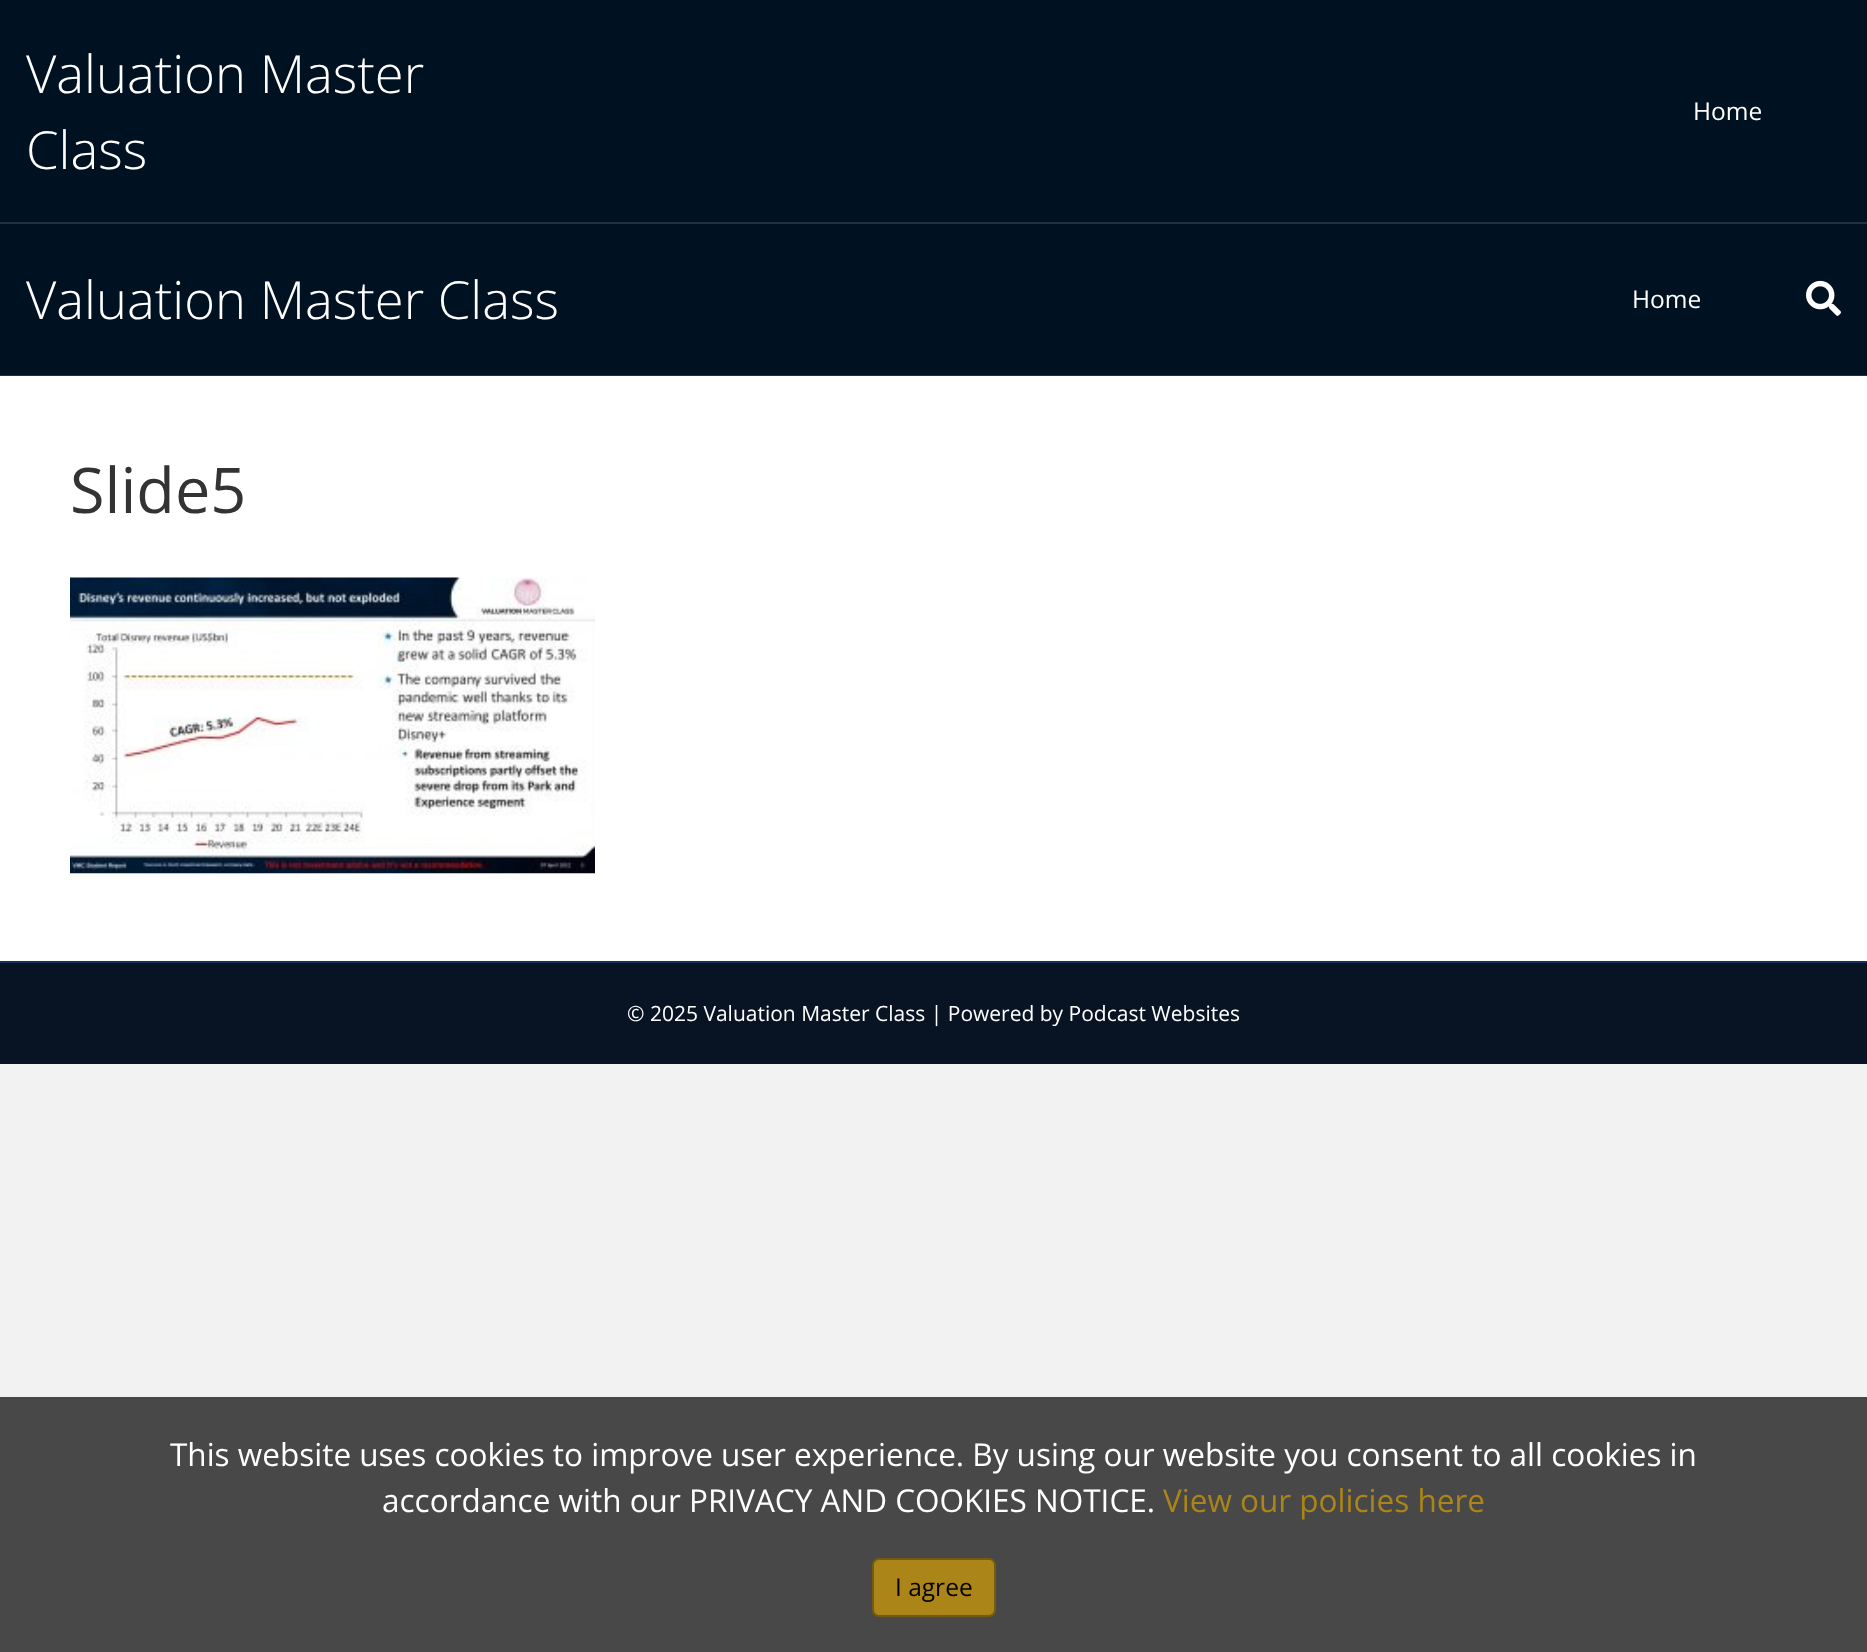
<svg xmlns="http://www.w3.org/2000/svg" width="1867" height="1652">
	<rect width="100%" height="100%" fill="#F2F2F2" />
	<rect x="0" y="0" width="1867" height="222" fill="#001221" />
	<rect x="0" y="222" width="1867" height="2" fill="#21313E" />
	<g font-family="Open Sans" font-size="52.5" font-weight="300" fill="#FFFFFF">
		<text x="26" y="93">Valuation Master</text>
		<text x="26" y="169">Class</text>
	</g>
	<text x="1693" y="120" font-family="Open Sans" font-size="24.5" fill="#FFFFFF">Home</text>
	<rect x="0" y="224" width="1867" height="151" fill="#001221" />
	<rect x="0" y="375" width="1867" height="1" fill="#21313E" />
	<text x="26" y="319" font-family="Open Sans" font-size="52.5" font-weight="300" fill="#FFFFFF">Valuation Master Class</text>
	<text x="1632" y="308" font-family="Open Sans" font-size="24.5" fill="#FFFFFF">Home</text>
	<image x="1806" y="280" width="35" height="36" href="assets/img1.png" />
	<rect x="0" y="376" width="1867" height="585" fill="#FFFFFF" />
	<text x="70" y="513" font-family="Open Sans" font-size="63" fill="#333333">Slide5</text>
	<image x="70" y="577" width="525" height="297" href="assets/img2.png" />
	<rect x="0" y="963" width="1867" height="101" fill="#081424" />
	<rect x="0" y="961" width="1867" height="2" fill="#14325A" />
	<text x="627" y="1021" font-family="Open Sans" font-size="21" fill="#FFFFFF">© 2025 Valuation Master Class | Powered by Podcast Websites</text>
	<rect x="0" y="1397" width="1867" height="255" fill="#484848" />
	<g font-family="Open Sans" font-size="31.5" fill="#FFFFFF">
		<text x="170" y="1466">This website uses cookies to improve user experience. By using our website you consent to all cookies in</text>
		<text x="382" y="1512">accordance with our PRIVACY AND COOKIES NOTICE.</text>
	</g>
	<text x="1163" y="1512" font-family="Open Sans" font-size="31.5" fill="#AB8518">View our policies here</text>
	<rect x="873" y="1559" width="122" height="57" rx="6" fill="#AB8518" stroke="#755B10" stroke-width="2" />
	<text x="895" y="1596" font-family="Open Sans" font-size="24.5" fill="#000000">I agree</text>
</svg>
